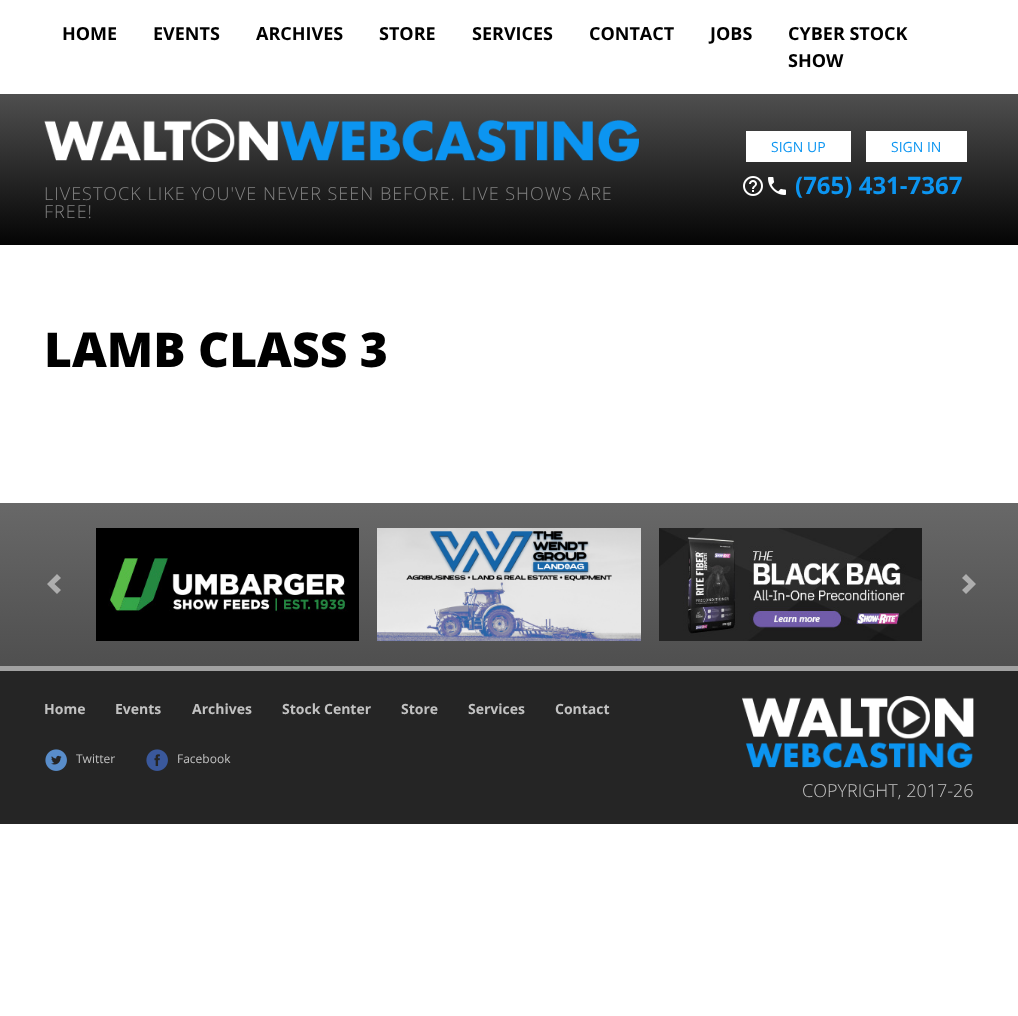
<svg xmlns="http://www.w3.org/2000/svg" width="1018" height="1016">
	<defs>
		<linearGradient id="g1" gradientUnits="userSpaceOnUse" x1="509" y1="94" x2="509" y2="245"><stop offset="0" stop-color="#4F4F4F" /><stop offset="1" stop-color="#040404" /></linearGradient>
		<linearGradient id="g2" gradientUnits="userSpaceOnUse" x1="509" y1="503" x2="509" y2="666"><stop offset="0" stop-color="#686868" /><stop offset="1" stop-color="#4F4F4F" /></linearGradient>
	</defs>
	<rect width="100%" height="100%" fill="#FFFFFF" />
	<g font-family="Open Sans" font-size="18" font-weight="700" fill="#000000">
		<text x="62" y="40">HOME</text>
		<text x="153" y="40">EVENTS</text>
		<text x="256" y="40">ARCHIVES</text>
		<text x="379" y="40">STORE</text>
		<text x="472" y="40">SERVICES</text>
		<text x="589" y="40">CONTACT</text>
		<text x="710" y="40">JOBS</text>
		<text x="788" y="40">CYBER STOCK</text>
		<text x="788" y="67">SHOW</text>
	</g>
	<rect x="0" y="94" width="1018" height="151" fill="url(#g1)" />
	<rect x="746" y="131" width="105" height="31" fill="#FFFFFF" />
	<text x="771" y="152" font-family="Open Sans" font-size="14" fill="#0C95F1">SIGN UP</text>
	<rect x="866" y="131" width="101" height="31" fill="#FFFFFF" />
	<text x="891" y="152" font-family="Open Sans" font-size="14" fill="#0C95F1">SIGN IN</text>
	<image x="743" y="176" width="20" height="20" href="assets/img1.png" />
	<image x="768" y="177" width="18" height="18" href="assets/img2.png" />
	<text x="795" y="194" font-family="Open Sans" font-size="24" font-weight="700" fill="#0C95F1">(765) 431-7367</text>
	<image x="44" y="119" width="595" height="43" href="assets/img3.png" />
	<g font-family="Open Sans" font-size="18" font-weight="300" letter-spacing="1" fill="#828282">
		<text x="44" y="200">LIVESTOCK LIKE YOU'VE NEVER SEEN BEFORE. LIVE SHOWS ARE</text>
		<text x="44" y="218">FREE!</text>
	</g>
	<text x="44" y="367" font-family="Open Sans" font-size="48" font-weight="800" fill="#000000">LAMB CLASS 3</text>
	<rect x="0" y="503" width="1018" height="163" fill="url(#g2)" />
	<path d="M57 574L47 584L57 594L61 590L54.5 584L61 578Z" fill="#FFFFFF" fill-opacity="0.5" />
	<image x="96" y="528" width="263" height="113" href="assets/img4.png" />
	<image x="377" y="528" width="264" height="113" href="assets/img5.png" />
	<image x="659" y="528" width="263" height="113" href="assets/img6.png" />
	<path d="M966 574L962 578L968.5 584L962 590L966 594L976 584Z" fill="#FFFFFF" fill-opacity="0.5" />
	<rect x="0" y="671" width="1018" height="153" fill="#252525" />
	<rect x="0" y="666" width="1018" height="5" fill="#A1A1A1" />
	<g font-family="Open Sans" font-size="14" font-weight="700" fill="#C2C2C2">
		<text x="44" y="714">Home</text>
		<text x="115" y="714">Events</text>
		<text x="192" y="714">Archives</text>
		<text x="282" y="714">Stock Center</text>
		<text x="401" y="714">Store</text>
		<text x="468" y="714">Services</text>
		<text x="555" y="714">Contact</text>
	</g>
	<image x="742" y="696" width="232" height="72" href="assets/img7.png" />
	<image x="45" y="749" width="22" height="22" href="assets/img8.png" />
	<text x="76" y="763" font-family="Open Sans" font-size="12" fill="#C2C2C2">Twitter</text>
	<image x="146" y="749" width="22" height="22" href="assets/img9.png" />
	<text x="177" y="763" font-family="Open Sans" font-size="12" fill="#C2C2C2">Facebook</text>
	<text x="802" y="797" font-family="Open Sans" font-size="18" font-weight="300" fill="#C2C2C2">COPYRIGHT, 2017-26</text>
</svg>
